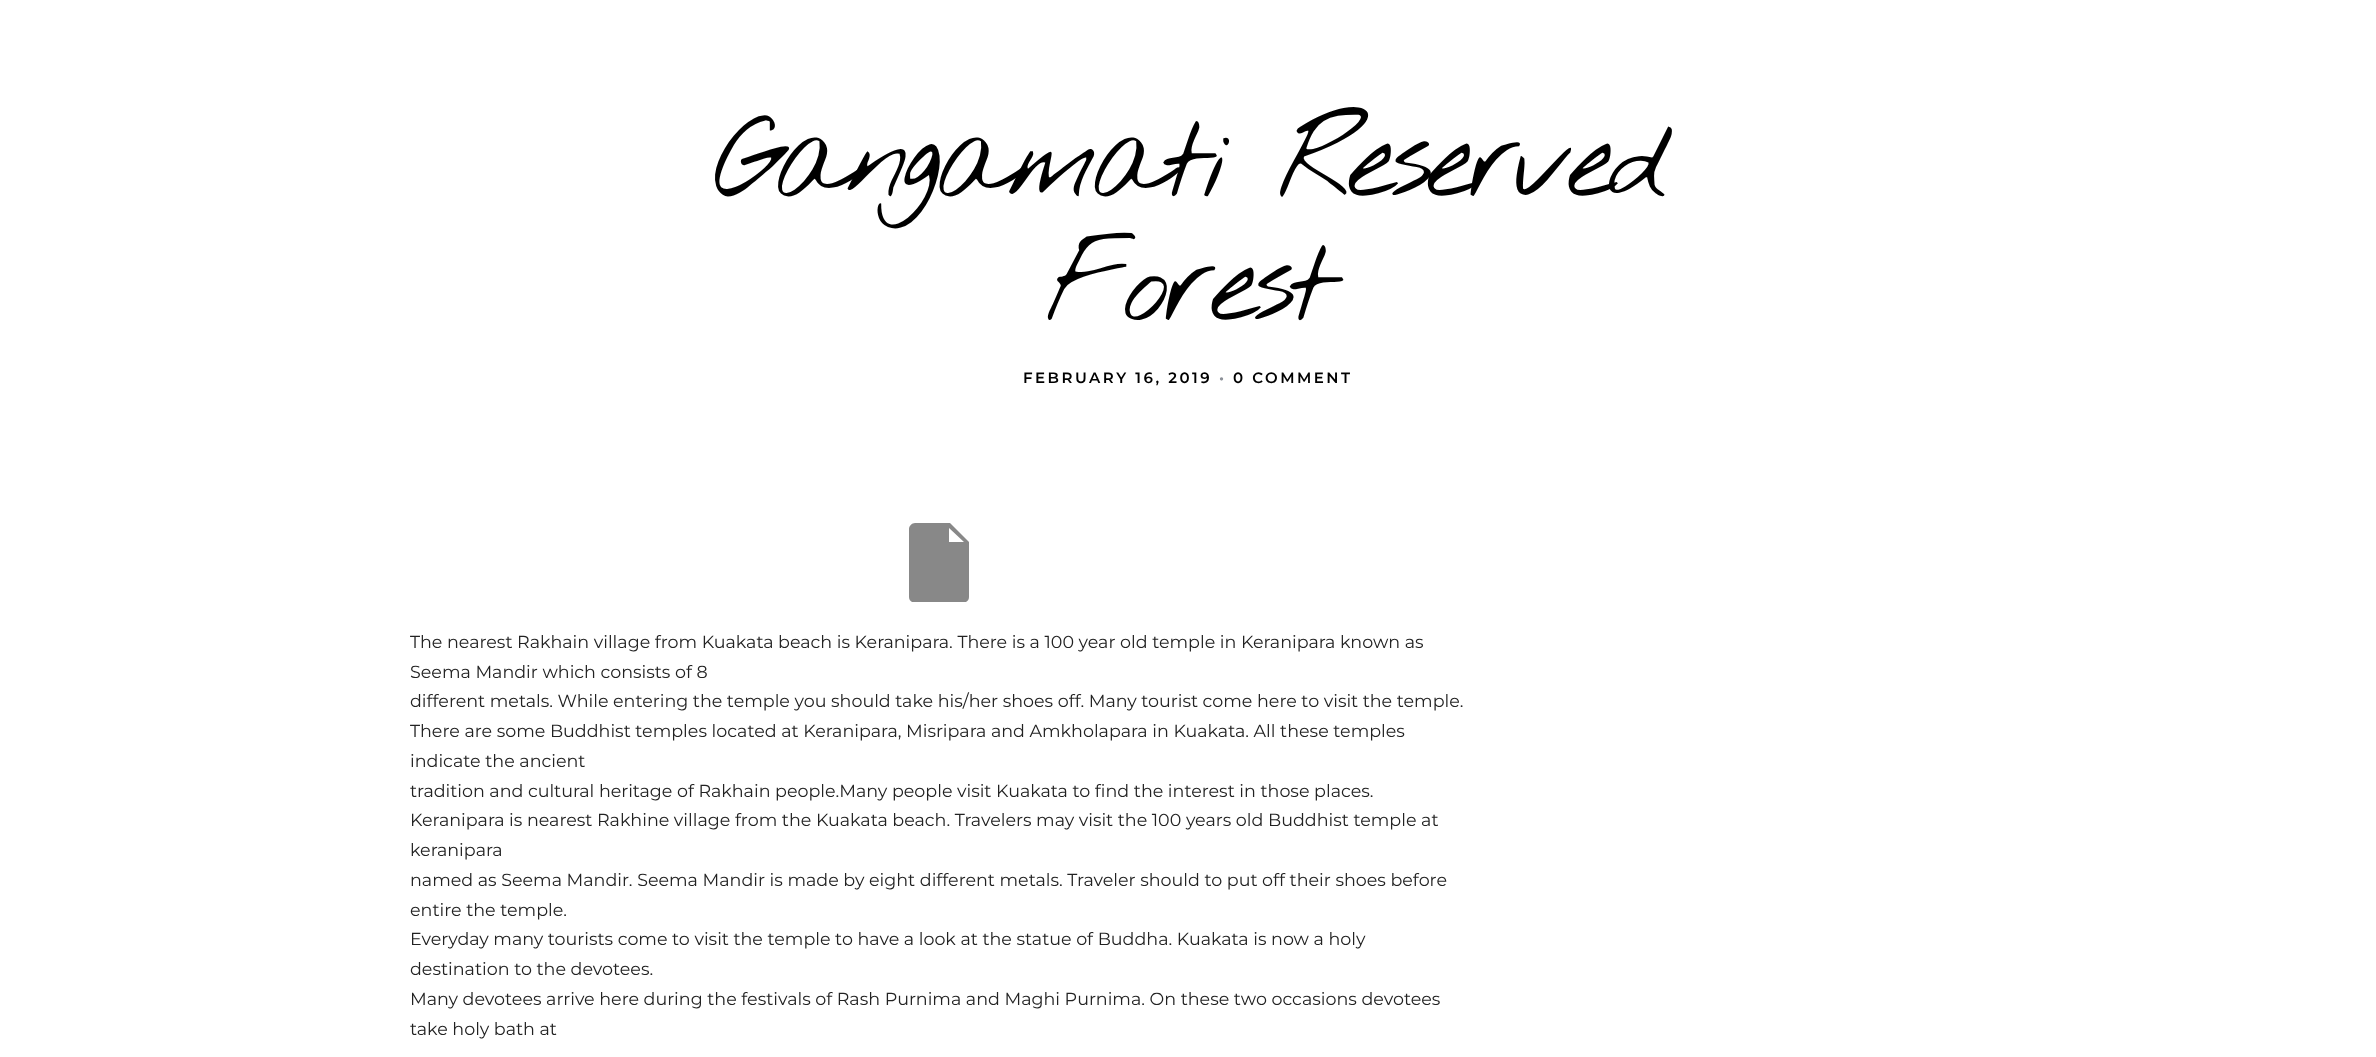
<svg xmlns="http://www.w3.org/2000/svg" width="2376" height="1057">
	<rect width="100%" height="100%" fill="#FFFFFF" />
	<g font-family="Nothing You Could Do" font-size="112.5" font-weight="100" letter-spacing="-6.25" fill="#000000">
		<text x="714" y="196">Gangamati Reserved</text>
		<text x="1046" y="320">Forest</text>
	</g>
	<text x="1023" y="383" font-family="Montserrat" font-size="15" font-weight="600" letter-spacing="2.5" fill="#000000">FEBRUARY 16, 2019</text>
	<text x="1219" y="383" font-family="Montserrat" font-size="15" font-weight="600" letter-spacing="2.5" fill="#8D9199">•</text>
	<text x="1233" y="383" font-family="Montserrat" font-size="15" font-weight="600" letter-spacing="2.5" fill="#000000">0 COMMENT</text>
	<path d="M915 523C912 523 909 526 909 529V597C909 599 910 601 912 602H966C968 601 969 599 969 597V542L950 523ZM949 542H964L949 528Z" fill="#888888" fill-rule="evenodd" />
	<g font-family="Montserrat" font-size="17.5" fill="#222222">
		<text x="410" y="648">The nearest Rakhain village from Kuakata beach is Keranipara. There is a 100 year old temple in Keranipara known as</text>
		<text x="410" y="678">Seema Mandir which consists of 8</text>
		<text x="410" y="707">different metals. While entering the temple you should take his/her shoes off. Many tourist come here to visit the temple.</text>
		<text x="410" y="737">There are some Buddhist temples located at Keranipara, Misripara and Amkholapara in Kuakata. All these temples</text>
		<text x="410" y="767">indicate the ancient</text>
		<text x="410" y="797">tradition and cultural heritage of Rakhain people.Many people visit Kuakata to find the interest in those places.</text>
		<text x="410" y="826">Keranipara is nearest Rakhine village from the Kuakata beach. Travelers may visit the 100 years old Buddhist temple at</text>
		<text x="410" y="856">keranipara</text>
		<text x="410" y="886">named as Seema Mandir. Seema Mandir is made by eight different metals. Traveler should to put off their shoes before</text>
		<text x="410" y="916">entire the temple.</text>
		<text x="410" y="945">Everyday many tourists come to visit the temple to have a look at the statue of Buddha. Kuakata is now a holy</text>
		<text x="410" y="975">destination to the devotees.</text>
		<text x="410" y="1005">Many devotees arrive here during the festivals of Rash Purnima and Maghi Purnima. On these two occasions devotees</text>
		<text x="410" y="1035">take holy bath at</text>
	</g>
</svg>
